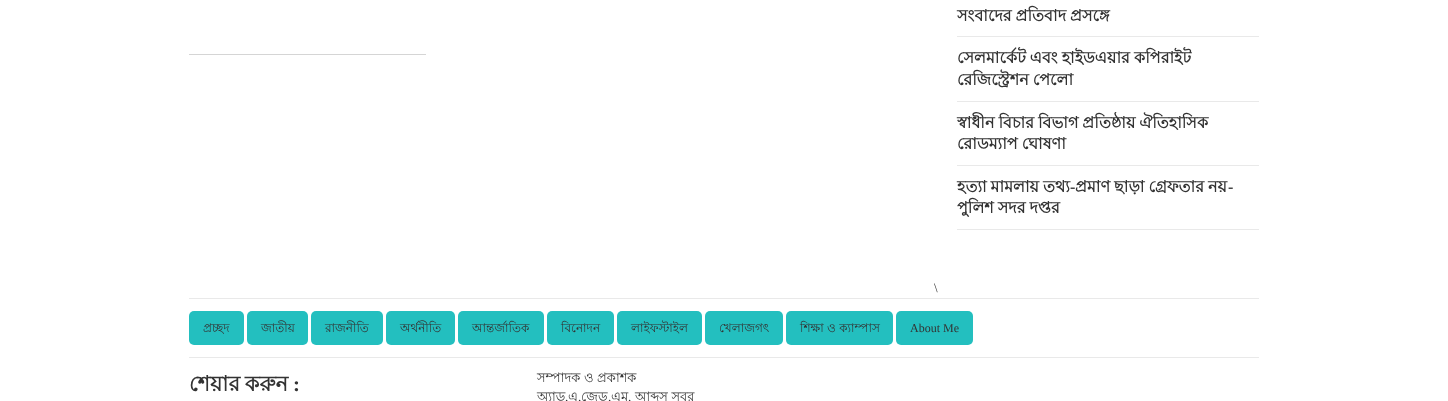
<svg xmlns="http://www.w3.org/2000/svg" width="1448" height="401">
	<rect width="100%" height="100%" fill="#FFFFFF" />
	<rect x="189" y="54" width="237" height="1" fill="#D5D5D5" />
	<rect x="957" y="36" width="302" height="1" fill="#E9E9E9" />
	<text x="957" y="21" word-spacing="-0.5" font-family="Lohit Bengali" font-size="16" font-weight="700" fill="#333333">সংবাদের প্রতিবাদ প্রসঙ্গে</text>
	<rect x="957" y="101" width="302" height="1" fill="#E9E9E9" />
	<g font-family="Lohit Bengali" font-size="16" font-weight="700" fill="#333333">
		<text x="957" y="63" word-spacing="-0.5">সেলমার্কেট এবং হাইডএয়ার</text>
		<text x="1134" y="63">কপিরাইট</text>
		<text x="957" y="85" word-spacing="-0.5">রেজিস্ট্রেশন পেলো</text>
	</g>
	<rect x="957" y="165" width="302" height="1" fill="#E9E9E9" />
	<g font-family="Lohit Bengali" font-size="16" font-weight="700" fill="#333333">
		<text x="957" y="128" word-spacing="-0.5">স্বাধীন বিচার বিভাগ প্রতিষ্ঠায় ঐতিহাসিক</text>
		<text x="957" y="149" word-spacing="-0.5">রোডম্যাপ ঘোষণা</text>
	</g>
	<rect x="957" y="229" width="302" height="1" fill="#E9E9E9" />
	<text x="957" y="192" word-spacing="-0.5" font-family="Lohit Bengali" font-size="16" font-weight="700" fill="#333333">হত্যা মামলায় তথ্য</text>
	<text x="1070" y="192" font-family="Liberation Serif" font-size="16" font-weight="700" fill="#333333">-</text>
	<text x="1075" y="192" word-spacing="-0.5" font-family="Lohit Bengali" font-size="16" font-weight="700" fill="#333333">প্রমাণ ছাড়া গ্রেফতার নয়</text>
	<text x="1228" y="192" font-family="Liberation Serif" font-size="16" font-weight="700" fill="#333333">-</text>
	<text x="957" y="213" word-spacing="-0.5" font-family="Lohit Bengali" font-size="16" font-weight="700" fill="#333333">পুলিশ সদর দপ্তর</text>
	<text x="934" y="292" font-family="Liberation Serif" font-size="13" fill="#333333">\</text>
	<rect x="189" y="298" width="1070" height="1" fill="#E9E9E9" />
	<rect x="189" y="311" width="55" height="34" rx="5" fill="#23BFBF" />
	<text x="203" y="332" font-family="Lohit Bengali" font-size="12" fill="#333333">প্রচ্ছদ</text>
	<rect x="247" y="311" width="61" height="34" rx="5" fill="#23BFBF" />
	<text x="261" y="332" font-family="Lohit Bengali" font-size="12" fill="#333333">জাতীয়</text>
	<rect x="311" y="311" width="72" height="34" rx="5" fill="#23BFBF" />
	<text x="325" y="332" font-family="Lohit Bengali" font-size="12" fill="#333333">রাজনীতি</text>
	<rect x="386" y="311" width="69" height="34" rx="5" fill="#23BFBF" />
	<text x="400" y="332" font-family="Lohit Bengali" font-size="12" fill="#333333">অর্থনীতি</text>
	<rect x="458" y="311" width="86" height="34" rx="5" fill="#23BFBF" />
	<text x="472" y="332" font-family="Lohit Bengali" font-size="12" fill="#333333">আন্তর্জাতিক</text>
	<rect x="547" y="311" width="67" height="34" rx="5" fill="#23BFBF" />
	<text x="561" y="332" font-family="Lohit Bengali" font-size="12" fill="#333333">বিনোদন</text>
	<rect x="617" y="311" width="85" height="34" rx="5" fill="#23BFBF" />
	<text x="631" y="332" font-family="Lohit Bengali" font-size="12" fill="#333333">লাইফস্টাইল</text>
	<rect x="705" y="311" width="78" height="34" rx="5" fill="#23BFBF" />
	<text x="719" y="332" font-family="Lohit Bengali" font-size="12" fill="#333333">খেলাজগৎ</text>
	<rect x="786" y="311" width="107" height="34" rx="5" fill="#23BFBF" />
	<text x="800" y="332" font-family="Lohit Bengali" font-size="12" fill="#333333">শিক্ষা ও ক্যাম্পাস</text>
	<rect x="896" y="311" width="77" height="34" rx="5" fill="#23BFBF" />
	<text x="910" y="332" font-family="Liberation Serif" font-size="12" fill="#333333">About Me</text>
	<rect x="189" y="357" width="1070" height="1" fill="#E9E9E9" />
	<text x="189" y="391" word-spacing="-1" font-family="Lohit Bengali" font-size="21" font-weight="700" fill="#333333">শেয়ার করুন</text>
	<text x="293" y="391" font-family="Liberation Serif" font-size="21" font-weight="700" fill="#333333">:</text>
	<g font-family="Lohit Bengali" font-size="13" fill="#333333">
		<text x="537" y="382">সম্পাদক ও প্রকাশক</text>
		<text x="537" y="401">অ্যাড</text>
	</g>
	<text x="565" y="401" font-family="Liberation Serif" font-size="13" fill="#333333">.</text>
	<text x="568" y="401" font-family="Lohit Bengali" font-size="13" fill="#333333">এ</text>
	<text x="578" y="401" font-family="Liberation Serif" font-size="13" fill="#333333">.</text>
	<text x="581" y="401" font-family="Lohit Bengali" font-size="13" fill="#333333">জেড</text>
	<text x="608" y="401" font-family="Liberation Serif" font-size="13" fill="#333333">.</text>
	<text x="611" y="401" font-family="Lohit Bengali" font-size="13" fill="#333333">এম</text>
	<text x="628" y="401" font-family="Liberation Serif" font-size="13" fill="#333333">.</text>
	<text x="635" y="401" font-family="Lohit Bengali" font-size="13" fill="#333333">আব্দুস সবুর</text>
</svg>
